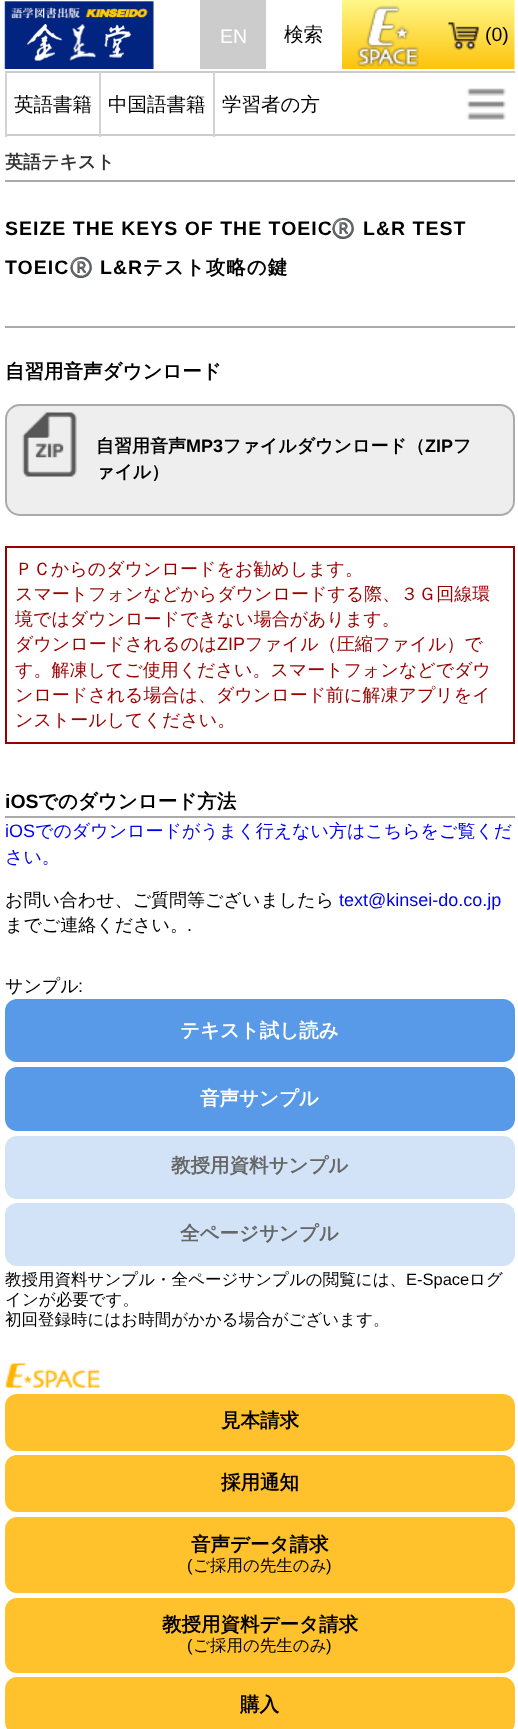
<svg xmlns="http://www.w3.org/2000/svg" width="518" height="1729">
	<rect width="100%" height="100%" fill="#FFFFFF" />
	<rect x="5" y="134" width="510" height="2" fill="#CCCCCC" />
	<image x="4" y="1" width="150" height="68" href="assets/img1.png" />
	<rect x="200" y="0" width="66" height="69" fill="#CCCCCC" />
	<text x="220" y="43" font-family="Liberation Sans" font-size="19.5" fill="#FFFFFF">EN</text>
	<text x="284" y="41" font-family="WenQuanYi Zen Hei" font-size="19.5" font-weight="500" fill="#000000">検索</text>
	<image x="342" y="0" width="173" height="69" href="assets/img2.png" />
	<image x="448" y="22" width="32" height="28" href="assets/img3.png" />
	<text x="485" y="41" font-family="Liberation Sans" font-size="19.5" fill="#000000">(0)</text>
	<rect x="5" y="71" width="510" height="2" fill="#CCCCCC" />
	<rect x="5" y="72" width="2" height="65" fill="#D3D3D3" />
	<text x="14" y="111" font-family="WenQuanYi Zen Hei" font-size="19.5" font-weight="500" fill="#000000">英語書籍</text>
	<rect x="99" y="72" width="2" height="65" fill="#D3D3D3" />
	<text x="108" y="111" font-family="WenQuanYi Zen Hei" font-size="19.5" font-weight="500" fill="#000000">中国語書籍</text>
	<rect x="213" y="72" width="2" height="65" fill="#D3D3D3" />
	<text x="222" y="111" font-family="WenQuanYi Zen Hei" font-size="19.5" font-weight="500" fill="#000000">学習者の方</text>
	<image x="466" y="88" width="41" height="32" href="assets/img4.png" />
	<rect x="5" y="180" width="510" height="2" fill="#AAAAAA" />
	<text x="5" y="168" font-family="WenQuanYi Zen Hei" font-size="18" font-weight="700" fill="#333333">英語テキスト</text>
	<rect x="5" y="326" width="510" height="2" fill="#AAAAAA" />
	<text x="5" y="235" font-family="Liberation Sans" font-size="19.5" font-weight="700" letter-spacing="1" fill="#000000">SEIZE THE KEYS OF THE TOEIC</text>
	<text x="331" y="235" font-family="Noto Color Emoji" font-size="19.5" font-weight="700" letter-spacing="1" fill="#000000">®️</text>
	<g font-family="Liberation Sans" font-size="19.5" font-weight="700" letter-spacing="1" fill="#000000">
		<text x="363" y="235">L&amp;R TEST</text>
		<text x="5" y="274">TOEIC</text>
	</g>
	<text x="69" y="274" font-family="Noto Color Emoji" font-size="19.5" font-weight="700" letter-spacing="1" fill="#000000">®️</text>
	<text x="100" y="274" font-family="Liberation Sans" font-size="19.5" font-weight="700" letter-spacing="1" fill="#000000">L&amp;R</text>
	<text x="143" y="274" font-family="WenQuanYi Zen Hei" font-size="19.5" font-weight="700" letter-spacing="1" fill="#000000">テスト攻略の鍵</text>
	<text x="5" y="378" font-family="WenQuanYi Zen Hei" font-size="19.5" font-weight="700" fill="#000000">自習用音声ダウンロード</text>
	<rect x="5" y="404" width="510" height="112" rx="15" fill="#EEEEEE" />
	<image x="22" y="412" width="55" height="65" href="assets/img5.png" />
	<rect x="6" y="405" width="508" height="110" rx="14" fill="none" stroke="#AAAAAA" stroke-width="2" />
	<text x="96" y="452" font-family="WenQuanYi Zen Hei" font-size="18" font-weight="700" fill="#000000">自習用音声</text>
	<text x="186" y="452" font-family="Liberation Sans" font-size="18" font-weight="700" fill="#000000">MP3</text>
	<text x="223" y="452" font-family="WenQuanYi Zen Hei" font-size="18" font-weight="700" fill="#000000">ファイルダウンロード（</text>
	<text x="425" y="452" font-family="Liberation Sans" font-size="18" font-weight="700" fill="#000000">ZIP</text>
	<g font-family="WenQuanYi Zen Hei" font-size="18" font-weight="700" fill="#000000">
		<text x="453" y="452">フ</text>
		<text x="96" y="478">ァイル）</text>
	</g>
	<rect x="6" y="547" width="508" height="196" fill="none" stroke="#990000" stroke-width="2" />
	<g font-family="WenQuanYi Zen Hei" font-size="18" font-weight="500" fill="#990000">
		<text x="15" y="575">ＰＣからのダウンロードをお勧めします。</text>
		<text x="15" y="600">スマートフォンなどからダウンロードする際、３Ｇ回線環</text>
		<text x="15" y="625">境ではダウンロードできない場合があります。</text>
		<text x="15" y="650">ダウンロードされるのは</text>
	</g>
	<text x="217" y="650" font-family="Liberation Sans" font-size="18" fill="#990000">ZIP</text>
	<g font-family="WenQuanYi Zen Hei" font-size="18" font-weight="500" fill="#990000">
		<text x="245" y="650">ファイル（圧縮ファイル）で</text>
		<text x="15" y="676">す。解凍してご使用ください。スマートフォンなどでダウ</text>
		<text x="15" y="701">ンロードされる場合は、ダウンロード前に解凍アプリをイ</text>
		<text x="15" y="726">ンストールしてください。</text>
	</g>
	<rect x="5" y="816" width="510" height="2" fill="#AAAAAA" />
	<text x="5" y="808" font-family="Liberation Sans" font-size="19.5" font-weight="700" fill="#000000">iOS</text>
	<text x="38" y="808" font-family="WenQuanYi Zen Hei" font-size="19.5" font-weight="700" fill="#000000">でのダウンロード方法</text>
	<text x="5" y="837" font-family="Liberation Sans" font-size="18" fill="#0000EE">iOS</text>
	<g font-family="WenQuanYi Zen Hei" font-size="18" font-weight="500" fill="#0000EE">
		<text x="35" y="837">でのダウンロードがうまく行えない方はこちらをご覧くだ</text>
		<text x="5" y="863">さい。</text>
	</g>
	<text x="5" y="906" font-family="WenQuanYi Zen Hei" font-size="18" font-weight="500" fill="#000000">お問い合わせ、ご質問等ございましたら</text>
	<text x="339" y="906" font-family="Liberation Sans" font-size="18" fill="#0000EE">text@kinsei-do.co.jp</text>
	<text x="5" y="931" font-family="WenQuanYi Zen Hei" font-size="18" font-weight="500" fill="#000000">までご連絡ください。</text>
	<text x="187" y="931" font-family="Liberation Sans" font-size="18" fill="#000000">.</text>
	<text x="5" y="992" font-family="WenQuanYi Zen Hei" font-size="18" font-weight="500" fill="#000000">サンプル</text>
	<text x="78" y="992" font-family="Liberation Sans" font-size="18" fill="#000000">:</text>
	<rect x="5" y="999" width="510" height="63" rx="12" fill="#5899E8" />
	<text x="180" y="1037" font-family="WenQuanYi Zen Hei" font-size="19.5" font-weight="700" fill="#FFFFFF">テキスト試し読み</text>
	<rect x="5" y="1067" width="510" height="64" rx="12" fill="#5899E8" />
	<text x="200" y="1105" font-family="WenQuanYi Zen Hei" font-size="19.5" font-weight="700" fill="#FFFFFF">音声サンプル</text>
	<rect x="5" y="1136" width="510" height="63" rx="12" fill="#D2E3F7" />
	<text x="171" y="1172" font-family="WenQuanYi Zen Hei" font-size="19.5" font-weight="700" fill="#666666">教授用資料サンプル</text>
	<rect x="5" y="1203" width="510" height="63" rx="12" fill="#D2E3F7" />
	<text x="180" y="1240" font-family="WenQuanYi Zen Hei" font-size="19.5" font-weight="700" fill="#666666">全ページサンプル</text>
	<text x="5" y="1285" font-family="WenQuanYi Zen Hei" font-size="16.5" font-weight="500" fill="#000000">教授用資料サンプル・全ページサンプルの閲覧には、</text>
	<text x="406" y="1285" font-family="Liberation Sans" font-size="16.5" fill="#000000">E-Space</text>
	<g font-family="WenQuanYi Zen Hei" font-size="16.5" font-weight="500" fill="#000000">
		<text x="469" y="1285">ログ</text>
		<text x="5" y="1305">インが必要です。</text>
		<text x="5" y="1325">初回登録時にはお時間がかかる場合がございます。</text>
	</g>
	<image x="5" y="1363" width="96" height="25" href="assets/img6.png" />
	<rect x="5" y="1394" width="510" height="57" rx="12" fill="#FFC12C" />
	<text x="221" y="1427" font-family="WenQuanYi Zen Hei" font-size="19.5" font-weight="700" fill="#000000">見本請求</text>
	<rect x="5" y="1455" width="510" height="57" rx="12" fill="#FFC12C" />
	<text x="221" y="1489" font-family="WenQuanYi Zen Hei" font-size="19.5" font-weight="700" fill="#000000">採用通知</text>
	<rect x="5" y="1517" width="510" height="76" rx="12" fill="#FFC12C" />
	<text x="191" y="1551" font-family="WenQuanYi Zen Hei" font-size="19.5" font-weight="700" fill="#000000">音声データ請求</text>
	<text x="187" y="1571" font-family="Liberation Sans" font-size="16.5" fill="#000000">(</text>
	<text x="193" y="1571" font-family="WenQuanYi Zen Hei" font-size="16.5" font-weight="500" fill="#000000">ご採用の先生のみ</text>
	<text x="326" y="1571" font-family="Liberation Sans" font-size="16.5" fill="#000000">)</text>
	<rect x="5" y="1598" width="510" height="75" rx="12" fill="#FFC12C" />
	<text x="162" y="1631" font-family="WenQuanYi Zen Hei" font-size="19.5" font-weight="700" fill="#000000">教授用資料データ請求</text>
	<text x="187" y="1651" font-family="Liberation Sans" font-size="16.5" fill="#000000">(</text>
	<text x="193" y="1651" font-family="WenQuanYi Zen Hei" font-size="16.5" font-weight="500" fill="#000000">ご採用の先生のみ</text>
	<text x="326" y="1651" font-family="Liberation Sans" font-size="16.5" fill="#000000">)</text>
	<rect x="5" y="1677" width="510" height="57" rx="12" fill="#FFC12C" />
	<text x="240" y="1711" font-family="WenQuanYi Zen Hei" font-size="19.5" font-weight="700" fill="#000000">購入</text>
</svg>
